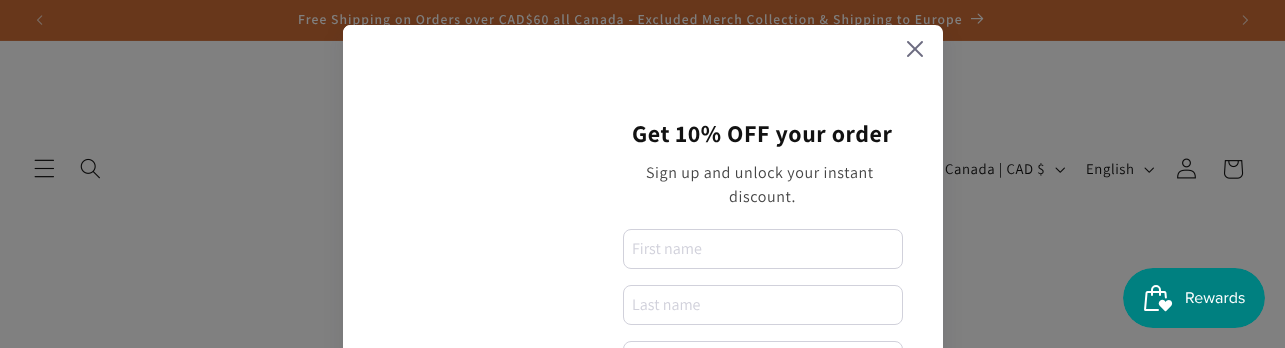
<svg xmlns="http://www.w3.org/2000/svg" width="1285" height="348">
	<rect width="100%" height="100%" fill="#808080" />
	<rect x="0" y="0" width="1285" height="40" fill="#68371B" />
	<rect x="0" y="40" width="1285" height="1" fill="#6A3D23" />
	<image x="37" y="15" width="6" height="10" href="assets/img1.png" />
	<text x="298" y="24" font-family="Assistant" font-size="13.65" font-weight="600" letter-spacing="1.05" fill="#808080">Free Shipping on Orders over CAD$60 all Canada - Excluded Merch Collection &amp; Shipping to Europe</text>
	<image x="971" y="13" width="13" height="11" href="assets/img2.png" />
	<image x="1242" y="15" width="6" height="10" href="assets/img3.png" />
	<rect x="343" y="33" width="600" height="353" rx="8" fill="#121127" fill-opacity="0.1" filter="blur(10px)" />
	<path d="M351 25H935C939.5 25 943 28.5 943 33V348H343V33C343 28.5 346.5 25 351 25Z" fill="#FFFFFF" />
	<path d="M351 25H583V348H343V33C343 28.5 346.5 25 351 25Z" fill="#FFFFFF" />
	<image x="907" y="41" width="16" height="16" href="assets/img4.png" />
	<text x="632" y="142" font-family="Assistant" font-size="24" font-weight="700" letter-spacing="0.6" fill="#121212">Get 10% OFF your order</text>
	<g font-family="Assistant" font-size="16" letter-spacing="0.6" fill="#454545">
		<text x="646" y="178">Sign up and unlock your instant</text>
		<text x="729" y="202">discount.</text>
	</g>
	<rect x="623.5" y="229.5" width="279" height="39" rx="7.5" fill="none" stroke="#D1D1DB" />
	<text x="632" y="254" font-family="Assistant" font-size="16" fill="#D1D1DB">First name</text>
	<rect x="623.5" y="285.5" width="279" height="39" rx="7.5" fill="none" stroke="#D1D1DB" />
	<text x="632" y="310" font-family="Assistant" font-size="16" fill="#D1D1DB">Last name</text>
	<rect x="623.5" y="341.5" width="279" height="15" rx="7.5" fill="none" stroke="#D1D1DB" />
	<image x="34" y="159" width="20" height="19" href="assets/img5.png" />
	<image x="80" y="158" width="20" height="21" href="assets/img6.png" />
	<text x="945" y="174" font-family="Assistant" font-size="14.75" letter-spacing="0.6" fill="#090909">Canada | CAD $</text>
	<image x="1055" y="167" width="10" height="6" href="assets/img7.png" />
	<text x="1086" y="174" font-family="Assistant" font-size="14.75" letter-spacing="0.6" fill="#090909">English</text>
	<image x="1144" y="167" width="10" height="6" href="assets/img7.png" />
	<image x="1177" y="158" width="19" height="21" href="assets/img8.png" />
	<image x="1224" y="160" width="20" height="19" href="assets/img9.png" />
	<image x="1123" y="268" width="142" height="60" href="assets/img10.png" />
</svg>
